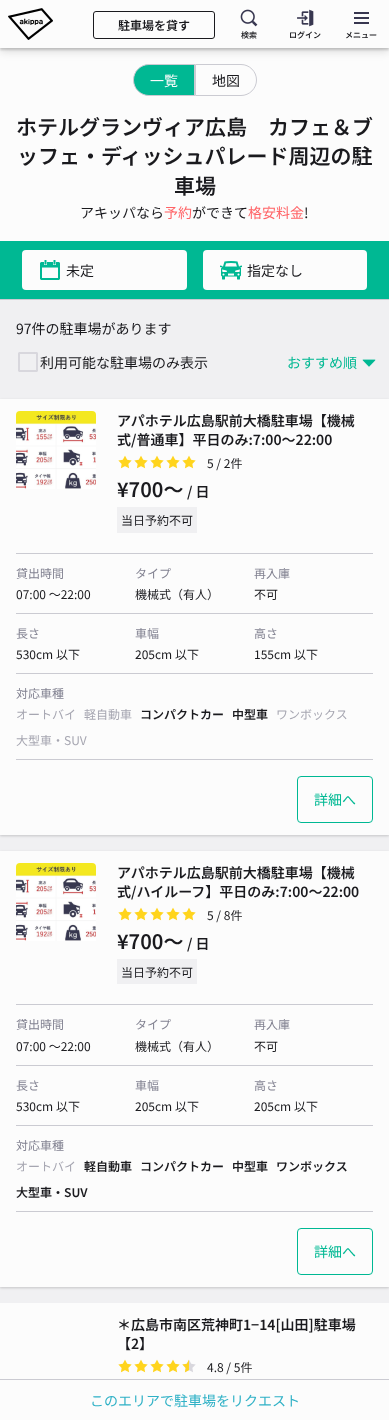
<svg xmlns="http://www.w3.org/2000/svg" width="389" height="1420">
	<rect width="100%" height="100%" fill="#F0F0F2" />
	<rect x="0" y="48" width="389" height="193" fill="#FCFCFC" />
	<rect x="0" y="2" width="389" height="48" fill="#000000" fill-opacity="0.16" filter="blur(1px)" />
	<path d="M149 64.5H194.5V95.5H149C140.5 95.5 133.5 88.5 133.5 80C133.5 71.5 140.5 64.5 149 64.5Z" fill="#00B893" stroke="#CBCBD2" />
	<path d="M195.5 64.5H241C249.5 64.5 256.5 71.5 256.5 80C256.5 88.5 249.5 95.5 241 95.5H195.5Z" fill="none" stroke="#CBCBD2" />
	<rect x="0" y="4" width="389" height="48" fill="#000000" fill-opacity="0.12" filter="blur(4px)" />
	<rect x="0" y="0" width="389" height="48" fill="#FCFCFC" />
	<image x="8" y="8" width="45" height="32" href="assets/img1.png" />
	<rect x="93.5" y="11.5" width="121" height="27" rx="2.5" fill="none" stroke="#1A1A1E" />
	<text x="118" y="30" font-family="Noto Sans JP" font-size="12" font-weight="600" fill="#1A1A1E">駐車場を貸す</text>
	<image x="240" y="9" width="18" height="18" href="assets/img2.png" />
	<text x="241" y="38" font-family="Noto Sans JP" font-size="8" font-weight="600" fill="#1A1A1E">検索</text>
	<image x="297" y="9" width="17" height="18" href="assets/img3.png" />
	<text x="289" y="38" font-family="Noto Sans JP" font-size="8" font-weight="600" fill="#1A1A1E">ログイン</text>
	<rect x="354" y="12" width="15" height="2" fill="#383750" />
	<rect x="354" y="17" width="15" height="2" fill="#383750" />
	<rect x="354" y="22" width="15" height="2" fill="#383750" />
	<text x="345" y="38" font-family="Noto Sans JP" font-size="8" font-weight="600" fill="#1A1A1E">メニュー</text>
	<text x="150" y="86" font-family="Noto Sans JP" font-size="14" fill="#FCFCFC">一覧</text>
	<text x="212" y="86" font-family="Noto Sans JP" font-size="14" fill="#1A1A1E">地図</text>
	<g font-family="Noto Sans JP" font-size="21" font-weight="600" fill="#1A1A1E">
		<text x="16" y="135">ホテルグランヴィア広島　カフェ＆ブ</text>
		<text x="17" y="164">ッフェ・ディッシュパレード周辺の駐</text>
		<text x="174" y="194">車場</text>
	</g>
	<text x="80" y="218" font-family="Noto Sans JP" font-size="14" fill="#1A1A1E">アキッパなら</text>
	<text x="164" y="218" font-family="Noto Sans JP" font-size="14" fill="#FF6366">予約</text>
	<text x="192" y="218" font-family="Noto Sans JP" font-size="14" fill="#1A1A1E">ができて</text>
	<text x="248" y="218" font-family="Noto Sans JP" font-size="14" fill="#FF6366">格安料金</text>
	<text x="304" y="218" font-family="Noto Sans JP" font-size="14" fill="#1A1A1E">!</text>
	<rect x="0" y="241" width="389" height="58" fill="#00B893" />
	<rect x="22" y="250" width="165" height="40" rx="4" fill="#FCFCFC" />
	<image x="40" y="260" width="20" height="20" href="assets/img4.png" />
	<text x="66" y="276" font-family="Noto Sans JP" font-size="14" fill="#1A1A1E">未定</text>
	<rect x="203" y="250" width="164" height="40" rx="4" fill="#FCFCFC" />
	<image x="220" y="261" width="22" height="19" href="assets/img5.png" />
	<text x="247" y="276" font-family="Noto Sans JP" font-size="14" fill="#1A1A1E">指定なし</text>
	<rect x="0" y="299" width="389" height="1" fill="#CBCBD2" />
	<text x="16" y="334" font-family="Noto Sans JP" font-size="14" fill="#1A1A1E">97件の駐車場があります</text>
	<image x="18" y="352" width="20" height="20" href="assets/img6.png" />
	<text x="40" y="368" font-family="Noto Sans JP" font-size="14" fill="#1A1A1E">利用可能な駐車場のみ表示</text>
	<image x="362" y="359" width="14" height="8" href="assets/img7.png" />
	<text x="287" y="368" font-family="Noto Sans JP" font-size="14" fill="#00B893">おすすめ順</text>
	<rect x="0" y="400" width="389" height="436" fill="#000000" fill-opacity="0.12" filter="blur(1px)" />
	<rect x="0" y="400" width="389" height="436" fill="#000000" fill-opacity="0.06" filter="blur(1.5px)" />
	<rect x="0" y="399" width="389" height="436" fill="#FCFCFC" />
	<image x="16" y="411" width="80" height="78" href="assets/img8.png" />
	<g font-family="Noto Sans JP" font-size="14" font-weight="600" fill="#1A1A1E">
		<text x="117" y="426">アパホテル広島駅前大橋駐車場【機械</text>
		<text x="117" y="445">式/普通車】平日のみ:7:00〜22:00</text>
	</g>
	<image x="118" y="455" width="78" height="14" href="assets/img9.png" />
	<text x="207" y="468" font-family="Noto Sans JP" font-size="12" fill="#1A1A1E">5 / 2件</text>
	<text x="117" y="497" font-family="Noto Sans JP" font-size="20" font-weight="600" fill="#1A1A1E">¥700〜</text>
	<text x="187" y="497" font-family="Noto Sans JP" font-size="14" font-weight="600" fill="#1A1A1E">/ 日</text>
	<rect x="117" y="507" width="80" height="26" fill="#F0F0F2" />
	<text x="121" y="525" font-family="Noto Sans JP" font-size="12" fill="#1A1A1E">当日予約不可</text>
	<rect x="16" y="553" width="357" height="1" fill="#CBCBD2" />
	<g font-family="Noto Sans JP" font-size="12" fill="#828291">
		<text x="16" y="578">貸出時間</text>
		<text x="135" y="578">タイプ</text>
		<text x="254" y="578">再入庫</text>
	</g>
	<g font-family="Noto Sans JP" font-size="12" fill="#1A1A1E">
		<text x="16" y="599">07:00 〜22:00</text>
		<text x="135" y="599">機械式（有人）</text>
		<text x="254" y="599">不可</text>
	</g>
	<rect x="16" y="613" width="357" height="1" fill="#CBCBD2" />
	<g font-family="Noto Sans JP" font-size="12" fill="#828291">
		<text x="16" y="638">長さ</text>
		<text x="135" y="638">車幅</text>
		<text x="254" y="638">高さ</text>
	</g>
	<g font-family="Noto Sans JP" font-size="12" fill="#1A1A1E">
		<text x="16" y="659">530cm 以下</text>
		<text x="135" y="659">205cm 以下</text>
		<text x="254" y="659">155cm 以下</text>
	</g>
	<rect x="16" y="673" width="357" height="1" fill="#CBCBD2" />
	<rect x="16" y="759" width="357" height="1" fill="#CBCBD2" />
	<text x="16" y="698" font-family="Noto Sans JP" font-size="12" fill="#828291">対応車種</text>
	<g font-family="Noto Sans JP" font-size="12" fill="#A6A6B1">
		<text x="16" y="719">オートバイ</text>
		<text x="84" y="719">軽自動車</text>
	</g>
	<g font-family="Noto Sans JP" font-size="12" font-weight="600" fill="#1A1A1E">
		<text x="140" y="719">コンパクトカー</text>
		<text x="232" y="719">中型車</text>
	</g>
	<g font-family="Noto Sans JP" font-size="12" fill="#A6A6B1">
		<text x="276" y="719">ワンボックス</text>
		<text x="16" y="745">大型車・SUV</text>
	</g>
	<rect x="297.5" y="776.5" width="75" height="46" rx="3.5" fill="none" stroke="#00B893" />
	<text x="314" y="805" font-family="Noto Sans JP" font-size="14" fill="#00B893">詳細へ</text>
	<rect x="0" y="852" width="389" height="436" fill="#000000" fill-opacity="0.12" filter="blur(1px)" />
	<rect x="0" y="852" width="389" height="436" fill="#000000" fill-opacity="0.06" filter="blur(1.5px)" />
	<rect x="0" y="851" width="389" height="436" fill="#FCFCFC" />
	<image x="16" y="863" width="80" height="78" href="assets/img10.png" />
	<g font-family="Noto Sans JP" font-size="14" font-weight="600" fill="#1A1A1E">
		<text x="117" y="878">アパホテル広島駅前大橋駐車場【機械</text>
		<text x="117" y="897">式/ハイルーフ】平日のみ:7:00〜22:00</text>
	</g>
	<image x="118" y="907" width="78" height="14" href="assets/img9.png" />
	<text x="207" y="920" font-family="Noto Sans JP" font-size="12" fill="#1A1A1E">5 / 8件</text>
	<text x="117" y="949" font-family="Noto Sans JP" font-size="20" font-weight="600" fill="#1A1A1E">¥700〜</text>
	<text x="187" y="949" font-family="Noto Sans JP" font-size="14" font-weight="600" fill="#1A1A1E">/ 日</text>
	<rect x="117" y="959" width="80" height="25" fill="#F0F0F2" />
	<text x="121" y="977" font-family="Noto Sans JP" font-size="12" fill="#1A1A1E">当日予約不可</text>
	<rect x="16" y="1004" width="357" height="1" fill="#CBCBD2" />
	<g font-family="Noto Sans JP" font-size="12" fill="#828291">
		<text x="16" y="1029">貸出時間</text>
		<text x="135" y="1029">タイプ</text>
		<text x="254" y="1029">再入庫</text>
	</g>
	<g font-family="Noto Sans JP" font-size="12" fill="#1A1A1E">
		<text x="16" y="1051">07:00 〜22:00</text>
		<text x="135" y="1051">機械式（有人）</text>
		<text x="254" y="1051">不可</text>
	</g>
	<rect x="16" y="1065" width="357" height="1" fill="#CBCBD2" />
	<g font-family="Noto Sans JP" font-size="12" fill="#828291">
		<text x="16" y="1090">長さ</text>
		<text x="135" y="1090">車幅</text>
		<text x="254" y="1090">高さ</text>
	</g>
	<g font-family="Noto Sans JP" font-size="12" fill="#1A1A1E">
		<text x="16" y="1111">530cm 以下</text>
		<text x="135" y="1111">205cm 以下</text>
		<text x="254" y="1111">205cm 以下</text>
	</g>
	<rect x="16" y="1125" width="357" height="1" fill="#CBCBD2" />
	<rect x="16" y="1211" width="357" height="1" fill="#CBCBD2" />
	<text x="16" y="1150" font-family="Noto Sans JP" font-size="12" fill="#828291">対応車種</text>
	<text x="16" y="1171" font-family="Noto Sans JP" font-size="12" fill="#A6A6B1">オートバイ</text>
	<g font-family="Noto Sans JP" font-size="12" font-weight="600" fill="#1A1A1E">
		<text x="84" y="1171">軽自動車</text>
		<text x="140" y="1171">コンパクトカー</text>
		<text x="232" y="1171">中型車</text>
		<text x="276" y="1171">ワンボックス</text>
		<text x="16" y="1197">大型車・SUV</text>
	</g>
	<rect x="297.5" y="1228.5" width="75" height="46" rx="3.5" fill="none" stroke="#00B893" />
	<text x="314" y="1257" font-family="Noto Sans JP" font-size="14" fill="#00B893">詳細へ</text>
	<rect x="0" y="1303" width="389" height="76" fill="#FCFCFC" />
	<g font-family="Noto Sans JP" font-size="14" font-weight="600" fill="#1A1A1E">
		<text x="117" y="1330">＊広島市南区荒神町1−14[山田]駐車場</text>
		<text x="117" y="1349">【2】</text>
	</g>
	<image x="118" y="1359" width="78" height="14" href="assets/img11.png" />
	<text x="207" y="1372" font-family="Noto Sans JP" font-size="12" fill="#1A1A1E">4.8 / 5件</text>
	<rect x="0" y="1380" width="389" height="40" fill="#FCFCFC" />
	<rect x="0" y="1379" width="389" height="1" fill="#CBCBD2" />
	<text x="90" y="1406" font-family="Noto Sans JP" font-size="14" fill="#30B1C6">このエリアで駐車場をリクエスト</text>
</svg>
